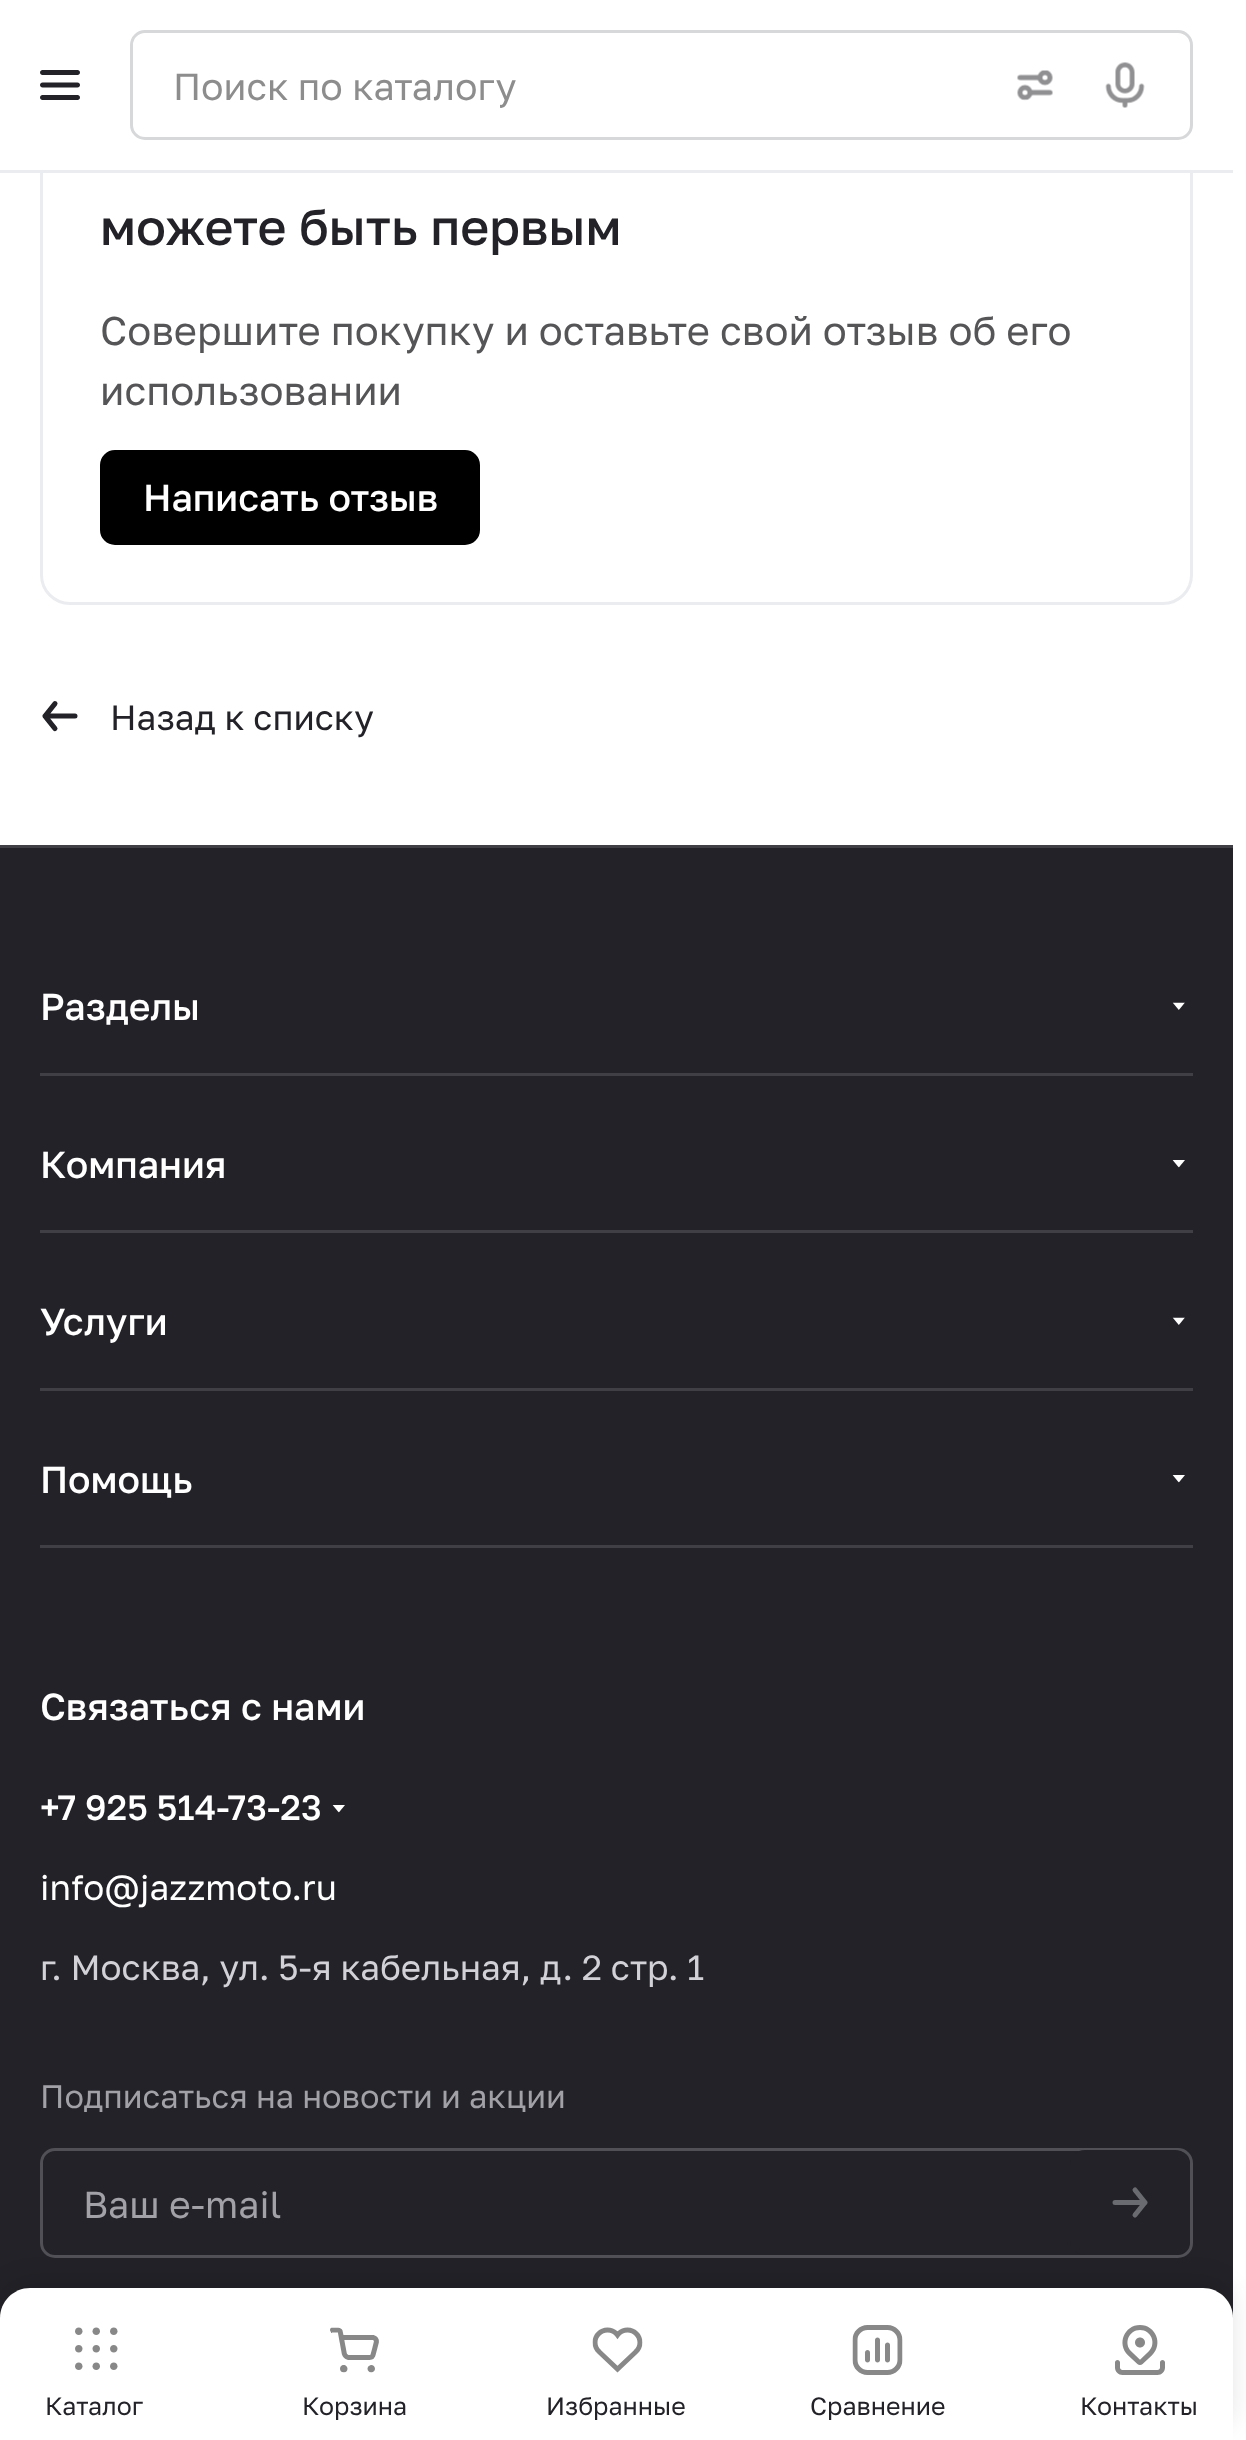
<svg xmlns="http://www.w3.org/2000/svg" width="1246" height="2440">
	<rect width="100%" height="100%" fill="#FFFFFF" />
	<rect x="41.5" y="61.5" width="1150" height="542" rx="28.5" fill="none" stroke="#EBECEF" stroke-width="3" />
	<rect x="40" y="60" width="1153" height="110" fill="#FFFFFF" />
	<rect x="0" y="170" width="1233" height="3" fill="#EBECEF" />
	<image x="40" y="70" width="40" height="30" href="assets/img1.png" />
	<rect x="131.5" y="31.5" width="1060" height="107" rx="13.5" fill="none" stroke="#D7D8DA" stroke-width="3" />
	<text x="173" y="100" font-family="Golos Text" font-size="37.5" fill="#8D8D8D">Поиск по каталогу</text>
	<image x="1017" y="70" width="36" height="31" href="assets/img2.png" />
	<image x="1105" y="62" width="40" height="46" href="assets/img3.png" />
	<text x="100" y="245" font-family="Golos Text" font-size="50" font-weight="500" fill="#222228">можете быть первым</text>
	<g font-family="Golos Text" font-size="40" fill="#555558">
		<text x="100" y="345">Совершите покупку и оставьте свой отзыв об его</text>
		<text x="100" y="405">использовании</text>
	</g>
	<rect x="101.5" y="451.5" width="377" height="92" rx="13.5" fill="#000000" stroke="#000000" stroke-width="3" />
	<text x="143" y="511" font-family="Golos Text" font-size="37.5" font-weight="500" fill="#FFFFFF">Написать отзыв</text>
	<image x="42" y="701" width="36" height="31" href="assets/img4.png" />
	<text x="110" y="730" font-family="Golos Text" font-size="35" fill="#222228">Назад к списку</text>
	<rect x="0" y="848" width="1233" height="1470" fill="#222228" />
	<rect x="0" y="845" width="1233" height="3" fill="#3F3F45" />
	<rect x="40" y="1073" width="1153" height="3" fill="#3F3F45" />
	<text x="40" y="1020" font-family="Golos Text" font-size="37.5" font-weight="500" fill="#FFFFFF">Разделы</text>
	<image x="1172" y="1002" width="13" height="8" href="assets/img5.png" />
	<rect x="40" y="1230" width="1153" height="3" fill="#3F3F45" />
	<text x="40" y="1178" font-family="Golos Text" font-size="37.5" font-weight="500" fill="#FFFFFF">Компания</text>
	<image x="1172" y="1160" width="13" height="8" href="assets/img6.png" />
	<rect x="40" y="1388" width="1153" height="3" fill="#3F3F45" />
	<text x="40" y="1335" font-family="Golos Text" font-size="37.5" font-weight="500" fill="#FFFFFF">Услуги</text>
	<image x="1172" y="1317" width="13" height="8" href="assets/img5.png" />
	<rect x="40" y="1545" width="1153" height="3" fill="#3F3F45" />
	<text x="40" y="1493" font-family="Golos Text" font-size="37.5" font-weight="500" fill="#FFFFFF">Помощь</text>
	<image x="1172" y="1475" width="13" height="8" href="assets/img6.png" />
	<text x="40" y="1720" font-family="Golos Text" font-size="37.5" font-weight="500" fill="#FFFFFF">Связаться с нами</text>
	<text x="40" y="1820" font-family="Golos Text" font-size="35" font-weight="500" fill="#FFFFFF">+7 925 514-73-23</text>
	<image x="332" y="1805" width="13" height="8" href="assets/img6.png" />
	<text x="40" y="1900" font-family="Golos Text" font-size="35" fill="#FFFFFF">info@jazzmoto.ru</text>
	<text x="40" y="1980" font-family="Golos Text" font-size="35" fill="#D1D1D7">г. Москва, ул. 5-я кабельная, д. 2 стр. 1</text>
	<text x="40" y="2108" font-family="Golos Text" font-size="32.5" fill="#A1A1A7">Подписаться на новости и акции</text>
	<rect x="41.5" y="2149.5" width="1150" height="107" rx="13.5" fill="none" stroke="#505056" stroke-width="3" />
	<text x="83" y="2218" font-family="Golos Text" font-size="37.5" fill="#A1A1A7">Ваш e-mail</text>
	<rect x="1070" y="2150" width="120" height="105" rx="15" fill="#222228" />
	<image x="1112" y="2187" width="36" height="31" href="assets/img7.png" />
	<rect x="0" y="2280" width="1233" height="153" rx="30" fill="#000000" fill-opacity="0.1" filter="blur(12.5px)" />
	<path d="M30 2288H1203C1219.5 2288 1233 2301.5 1233 2318V2440H0V2318C0 2301.5 13.5 2288 30 2288Z" fill="#FFFFFF" />
	<image x="75" y="2327" width="43" height="43" href="assets/img8.png" />
	<text x="45" y="2415" font-family="Golos Text" font-size="25" fill="#222228">Каталог</text>
	<image x="330" y="2327" width="49" height="46" href="assets/img9.png" />
	<text x="302" y="2415" font-family="Golos Text" font-size="25" fill="#222228">Корзина</text>
	<image x="592" y="2327" width="51" height="46" href="assets/img10.png" />
	<text x="546" y="2415" font-family="Golos Text" font-size="25" fill="#222228">Избранные</text>
	<image x="852" y="2325" width="51" height="50" href="assets/img11.png" />
	<text x="810" y="2415" font-family="Golos Text" font-size="25" fill="#222228">Сравнение</text>
	<image x="1115" y="2325" width="50" height="50" href="assets/img12.png" />
	<text x="1080" y="2415" font-family="Golos Text" font-size="25" fill="#222228">Контакты</text>
</svg>
